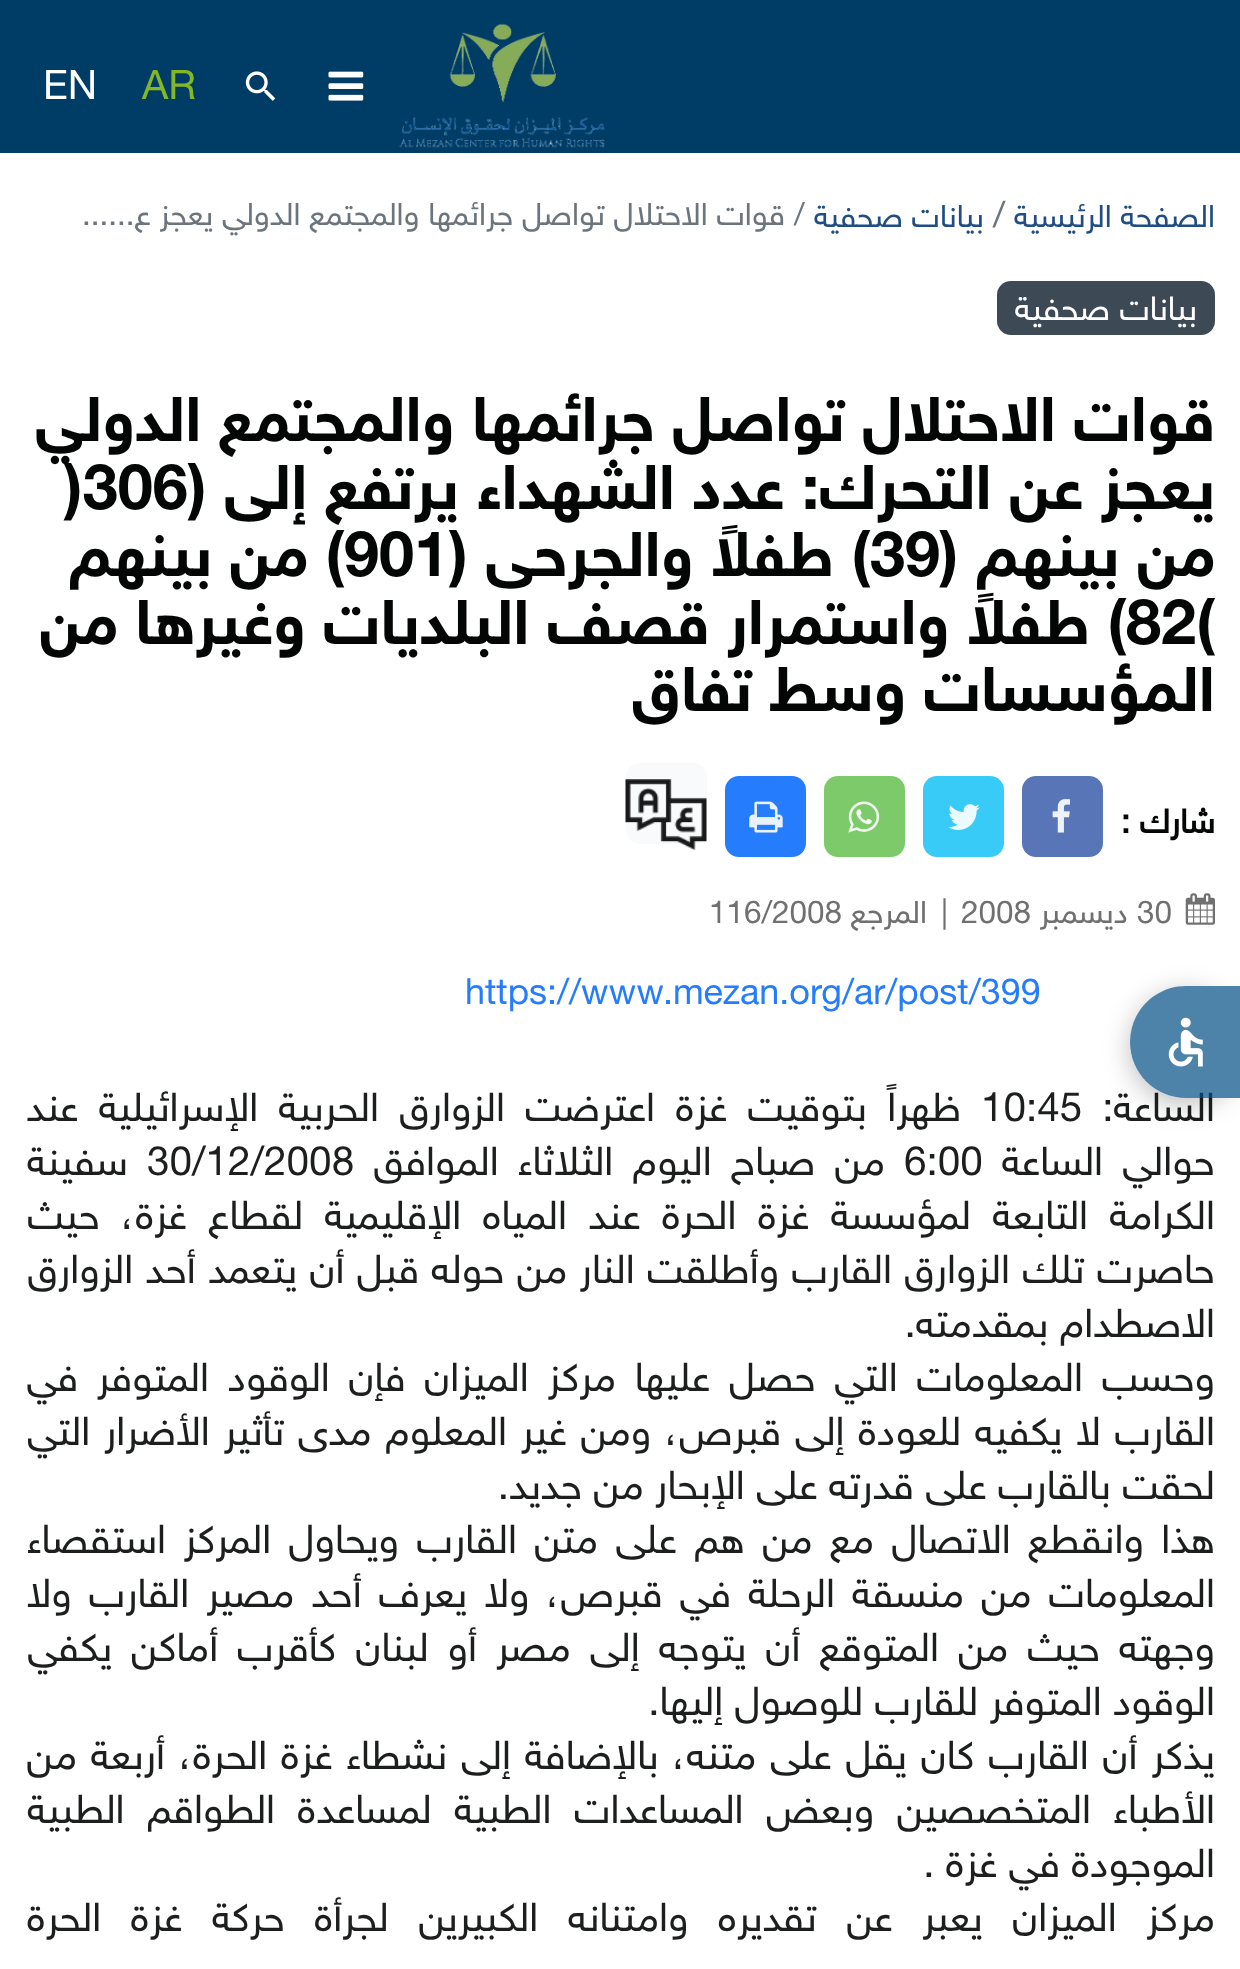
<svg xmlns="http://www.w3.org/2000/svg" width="1240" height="1969">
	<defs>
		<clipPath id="clip1"><path d="M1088 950H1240V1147H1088ZM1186 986H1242V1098H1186C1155 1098 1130 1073 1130 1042C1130 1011 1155 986 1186 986Z" clip-rule="evenodd" /></clipPath>
	</defs>
	<rect width="100%" height="100%" fill="#FFFFFF" />
	<rect x="0" y="0" width="1240" height="153" fill="#003D66" />
	<image x="399" y="23" width="206" height="125" href="assets/img1.png" />
	<image x="328" y="71" width="36" height="30" href="assets/img2.png" />
	<image x="245" y="71" width="31" height="30" href="assets/img3.png" />
	<text x="142" y="99" font-family="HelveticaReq" font-size="40.5" fill="#83B727">AR</text>
	<text x="43" y="99" font-family="HelveticaReq" font-size="40.5" fill="#FFFFFF">EN</text>
	<text x="1215" y="227" font-family="HelveticaReq" font-size="31.5" direction="rtl" fill="#204D84">الصفحة الرئيسية</text>
	<text x="993" y="227" font-family="HelveticaReq" font-size="36" fill="#6C757D">/</text>
	<text x="984" y="227" font-family="HelveticaReq" font-size="31.5" direction="rtl" fill="#204D84">بيانات صحفية</text>
	<text x="794" y="225" font-family="HelveticaReq" font-size="31.5" fill="#6C757D">/</text>
	<text x="785" y="225" font-family="HelveticaReq" font-size="31.5" direction="rtl" fill="#6C757D">قوات الاحتلال تواصل جرائمها والمجتمع الدولي يعجز ع......</text>
	<rect x="997" y="281" width="218" height="54" rx="14" fill="#3E4956" />
	<text x="1197" y="320" font-family="HelveticaReq" font-size="33.75" direction="rtl" fill="#FFFFFF">بيانات صحفية</text>
	<g font-family="Helvetica" font-size="63" font-weight="700" direction="rtl" fill="#040505">
		<text x="1215" y="441">قوات الاحتلال تواصل جرائمها والمجتمع الدولي</text>
		<text x="1215" y="509">يعجز عن التحرك: عدد الشهداء يرتفع إلى (</text>
	</g>
	<text x="64" y="509" font-family="Helvetica" font-size="63" font-weight="700" fill="#040505">)306</text>
	<text x="1215" y="576" font-family="Helvetica" font-size="63" font-weight="700" direction="rtl" fill="#040505">من بينهم (</text>
	<text x="870" y="576" font-family="Helvetica" font-size="63" font-weight="700" fill="#040505">39</text>
	<text x="870" y="576" font-family="Helvetica" font-size="63" font-weight="700" direction="rtl" fill="#040505">) طفلاً والجرحى (</text>
	<text x="344" y="576" font-family="Helvetica" font-size="63" font-weight="700" fill="#040505">901</text>
	<text x="344" y="576" font-family="Helvetica" font-size="63" font-weight="700" direction="rtl" fill="#040505">) من بينهم</text>
	<text x="1126" y="644" font-family="Helvetica" font-size="63" font-weight="700" fill="#040505">82(</text>
	<g font-family="Helvetica" font-size="63" font-weight="700" direction="rtl" fill="#040505">
		<text x="1126" y="644">) طفلاً واستمرار قصف البلديات وغيرها من</text>
		<text x="1215" y="711">المؤسسات وسط تفاق</text>
	</g>
	<text x="1215" y="833" font-family="HelveticaReq" font-size="33.75" font-weight="700" direction="rtl" fill="#040505">شارك :</text>
	<rect x="1022" y="776" width="81" height="81" rx="14" fill="#5876B7" />
	<image x="1052" y="799" width="18" height="34" href="assets/img4.png" />
	<rect x="923" y="776" width="81" height="81" rx="14" fill="#39CBF8" />
	<image x="948" y="804" width="32" height="26" href="assets/img5.png" />
	<rect x="824" y="776" width="81" height="81" rx="14" fill="#7DCA6A" />
	<image x="848" y="801" width="32" height="32" href="assets/img6.png" />
	<rect x="725" y="776" width="81" height="81" rx="14" fill="#257DFD" />
	<image x="749" y="801" width="34" height="32" href="assets/img7.png" />
	<rect x="626" y="763" width="81" height="81" rx="14" fill="#F9FAFB" />
	<image x="625" y="779" width="82" height="71" href="assets/img8.png" />
	<image x="1185" y="893" width="30" height="32" href="assets/img9.png" />
	<text x="1137" y="923" font-family="HelveticaReq" font-size="31.5" fill="#707070">30</text>
	<text x="1128" y="923" font-family="HelveticaReq" font-size="31.5" direction="rtl" fill="#707070">ديسمبر</text>
	<g font-family="HelveticaReq" font-size="31.5" fill="#707070">
		<text x="961" y="923">2008</text>
		<text x="941" y="923">|</text>
	</g>
	<text x="927" y="923" font-family="HelveticaReq" font-size="31.5" direction="rtl" fill="#707070">المرجع</text>
	<text x="709" y="923" font-family="HelveticaReq" font-size="31.5" fill="#707070">116/2008</text>
	<text x="465" y="1004" font-family="HelveticaReq" font-size="36" fill="#257DFD">https://www.mezan.org/ar/post/399</text>
	<text x="1215" y="1121" font-family="HelveticaReq" font-size="40.5" direction="rtl" fill="#1D1E1E">الساعة:</text>
	<text x="981" y="1121" font-family="HelveticaReq" font-size="40.5" fill="#1D1E1E">10:45</text>
	<g font-family="HelveticaReq" font-size="40.5" direction="rtl" fill="#1D1E1E">
		<text x="961" y="1121" word-spacing="9">ظهراً بتوقيت غزة</text>
		<text x="655" y="1121" word-spacing="9">اعترضت الزوارق الحربية الإسرائيلية عند</text>
		<text x="1215" y="1175" word-spacing="8">حوالي الساعة</text>
	</g>
	<text x="904" y="1175" font-family="HelveticaReq" font-size="40.5" fill="#1D1E1E">6:00</text>
	<text x="885" y="1175" word-spacing="8" font-family="HelveticaReq" font-size="40.5" direction="rtl" fill="#1D1E1E">من صباح اليوم الثلاثاء الموافق</text>
	<text x="147" y="1175" font-family="HelveticaReq" font-size="40.5" fill="#1D1E1E">30/12/2008</text>
	<g font-family="HelveticaReq" font-size="40.5" direction="rtl" fill="#1D1E1E">
		<text x="128" y="1175">سفينة</text>
		<text x="1215" y="1229" word-spacing="10.25">الكرامة التابعة لمؤسسة غزة الحرة عند المياه الإقليمية لقطاع غزة، حيث</text>
		<text x="1215" y="1283" word-spacing="1.1">حاصرت تلك الزوارق القارب وأطلقت النار من حوله قبل أن يتعمد أحد الزوارق</text>
		<text x="1215" y="1337">الاصطدام بمقدمته.</text>
		<text x="1215" y="1391" word-spacing="7.5">وحسب المعلومات التي حصل عليها مركز الميزان فإن الوقود المتوفر في</text>
		<text x="1215" y="1445" word-spacing="2.4">القارب لا يكفيه للعودة إلى قبرص، ومن غير المعلوم مدى تأثير الأضرار التي</text>
		<text x="1215" y="1499">لحقت بالقارب على قدرته على الإبحار من جديد.</text>
		<text x="1215" y="1553" word-spacing="6.1">هذا وانقطع الاتصال مع من هم على متن القارب ويحاول المركز استقصاء</text>
		<text x="1215" y="1607" word-spacing="5.75">المعلومات من منسقة الرحلة في قبرص، ولا يعرف أحد مصير القارب ولا</text>
		<text x="1215" y="1661" word-spacing="7.75">وجهته حيث من المتوقع أن يتوجه إلى مصر أو لبنان كأقرب أماكن يكفي</text>
		<text x="1215" y="1715">الوقود المتوفر للقارب للوصول إليها.</text>
		<text x="1215" y="1769" word-spacing="2.6">يذكر أن القارب كان يقل على متنه، بالإضافة إلى نشطاء غزة الحرة، أربعة من</text>
		<text x="1215" y="1823" word-spacing="11.25">الأطباء المتخصصين وبعض المساعدات الطبية لمساعدة الطواقم الطبية</text>
		<text x="1215" y="1877">الموجودة في غزة .</text>
		<text x="1215" y="1931" word-spacing="18.4">مركز الميزان يعبر عن تقديره وامتنانه الكبيرين لجرأة حركة غزة الحرة</text>
	</g>
	<g clip-path="url(#clip1)">
		<rect x="1130" y="992" width="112" height="113" rx="56" fill="#000000" fill-opacity="0.25" filter="blur(13.5px)" />
	</g>
	<path d="M1186 986H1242V1098H1186C1155 1098 1130 1073 1130 1042C1130 1011 1155 986 1186 986Z" fill="#014F84" fill-opacity="0.7" />
	<image x="1168" y="1017" width="35" height="50" href="assets/img10.png" />
</svg>
